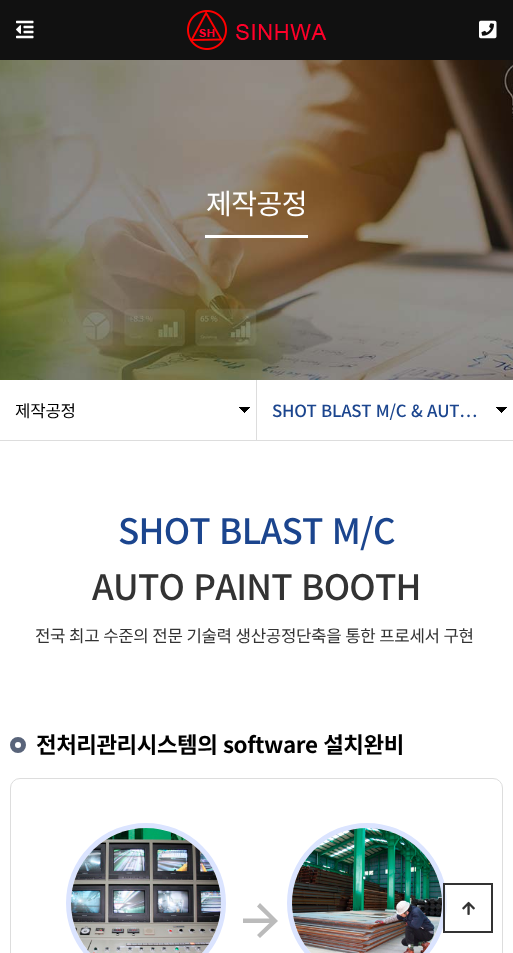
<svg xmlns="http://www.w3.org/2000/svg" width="513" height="953">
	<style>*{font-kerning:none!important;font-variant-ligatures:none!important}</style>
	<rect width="100%" height="100%" fill="#FFFFFF" />
	<rect x="0" y="0" width="513" height="60" fill="#111111" />
	<image x="187" y="10" width="140" height="40" href="assets/img1.png" />
	<image x="16" y="20" width="18" height="19" href="assets/img2.png" />
	<image x="479" y="20" width="18" height="19" href="assets/img3.png" />
	<image x="0" y="60" width="513" height="320" href="assets/img4.png" />
	<text x="206" y="214" font-family="Noto Sans KR" font-size="28" letter-spacing="-0.5" fill="#FFFFFF">제작공정</text>
	<rect x="205" y="235" width="103" height="3" fill="#FFFFFF" />
	<rect x="0" y="440" width="513" height="1" fill="#DDDDDD" />
	<rect x="256" y="380" width="1" height="60" fill="#DDDDDD" />
	<image x="239" y="407" width="11" height="6" href="assets/img5.png" />
	<text x="15" y="417" font-family="Noto Sans KR" font-size="16.8" letter-spacing="-0.25" fill="#000000">제작공정</text>
	<image x="496" y="407" width="11" height="6" href="assets/img5.png" />
	<text x="272" y="417" word-spacing="1" font-family="Noto Sans KR" font-size="16.8" font-weight="500" letter-spacing="-0.25" fill="#1B458E">SHOT BLAST M/C &amp; AUT…</text>
	<text x="118" y="544" word-spacing="2" font-family="Noto Sans KR" font-size="35" font-weight="500" letter-spacing="-0.75" fill="#1B458E">SHOT BLAST M/C</text>
	<text x="92" y="600" word-spacing="2" font-family="Noto Sans KR" font-size="35" font-weight="500" letter-spacing="-0.75" fill="#333333">AUTO PAINT BOOTH</text>
	<text x="35" y="642" word-spacing="0.5" font-family="Noto Sans KR" font-size="16.8" letter-spacing="-0.35" fill="#333333">전국 최고 수준의 전문 기술력 생산공정단축을 통한 프로세서 구현</text>
	<circle cx="18" cy="745" r="5.5" fill="none" stroke="#59647A" stroke-width="5" />
	<text x="36" y="753" word-spacing="1" font-family="Noto Sans KR" font-size="22.4" font-weight="700" letter-spacing="-0.45" fill="#000000">전처리관리시스템의 software 설치완비</text>
	<rect x="10.5" y="778.5" width="492" height="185" rx="9.5" fill="none" stroke="#DDDDDD" />
	<circle cx="146" cy="903" r="77.5" fill="none" stroke="#DBE4FF" stroke-width="5" />
	<image x="71" y="828" width="150" height="125" href="assets/img6.png" />
	<path d="M269.5 923H243V918.5H269.5L257 906.5L260 903L278 921L260 938L257 935Z" fill="#BBBBBB" />
	<circle cx="367" cy="903" r="77.5" fill="none" stroke="#DBE4FF" stroke-width="5" />
	<image x="292" y="828" width="150" height="125" href="assets/img7.png" />
	<rect x="445" y="886" width="2" height="34" fill="#FFFFFF" fill-opacity="0.5" />
	<rect x="444" y="884" width="48" height="48" fill="none" stroke="#333333" stroke-width="2" />
	<image x="462" y="901" width="13" height="14" href="assets/img8.png" />
</svg>
